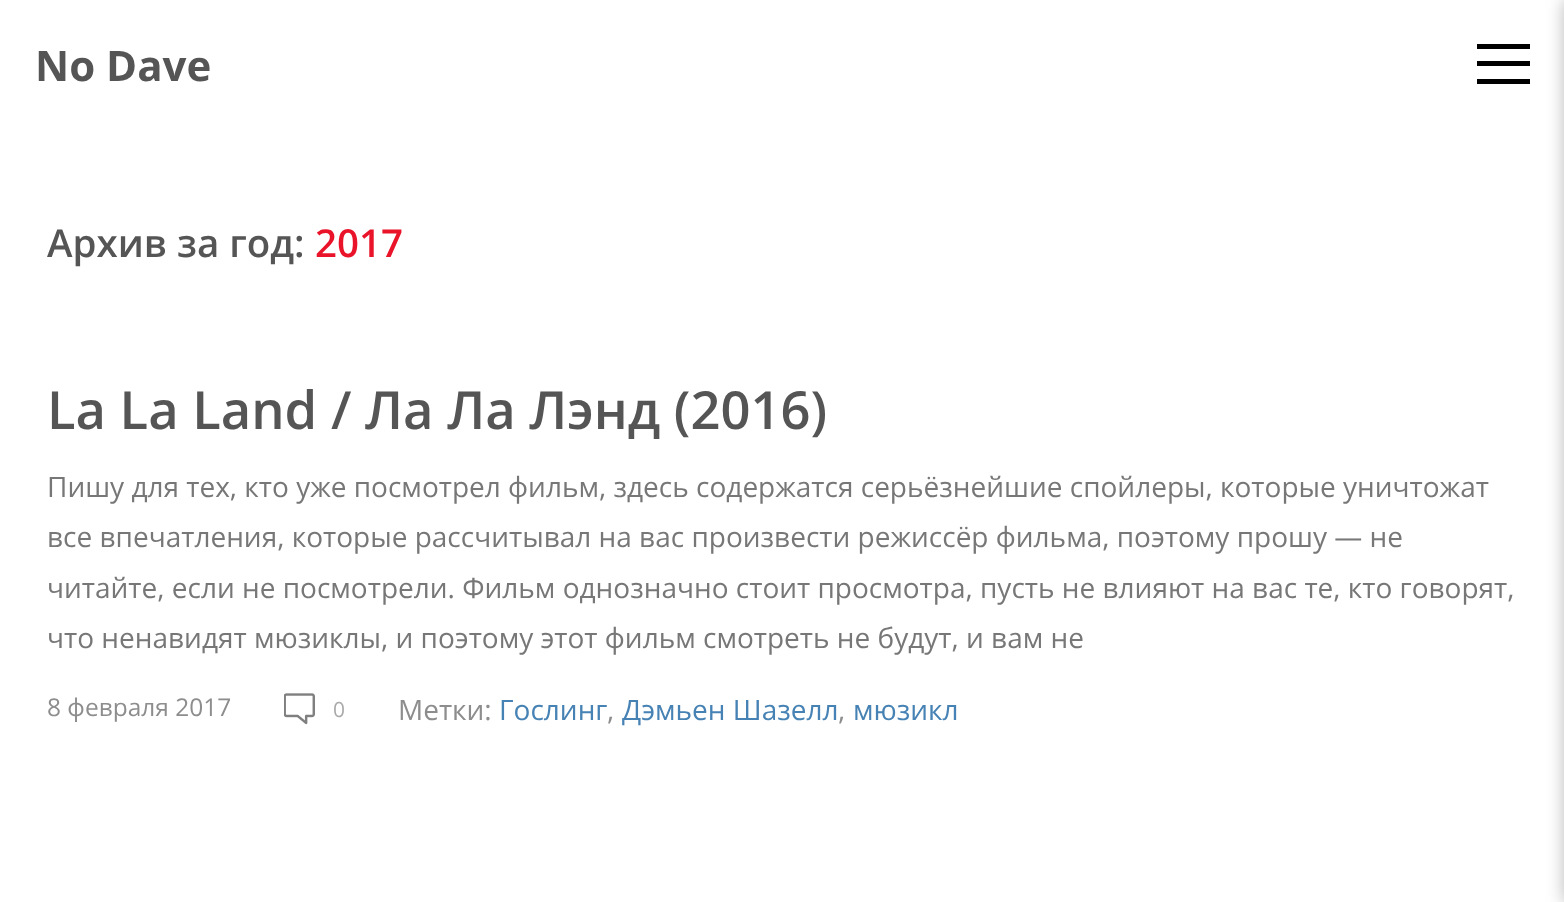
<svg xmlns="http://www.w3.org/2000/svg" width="1564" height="902">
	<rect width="100%" height="100%" fill="#FFFFFF" />
	<text x="35" y="81" font-family="Open Sans" font-size="42" font-weight="700" fill="#555555">No Dave</text>
	<rect x="1477" y="44" width="53" height="5" fill="#000000" />
	<rect x="1477" y="61" width="53" height="5" fill="#000000" />
	<rect x="1477" y="79" width="53" height="5" fill="#000000" />
	<rect x="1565" y="0" width="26" height="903" fill="#000000" fill-opacity="0.3" filter="blur(9px)" />
	<text x="47" y="257" font-family="Open Sans" font-size="38.5" font-weight="600" fill="#555555">Архив за год:</text>
	<text x="315" y="257" font-family="Open Sans" font-size="38.5" font-weight="600" fill="#E91429">2017</text>
	<text x="47" y="429" font-family="Open Sans" font-size="52.5" font-weight="600" fill="#555555">La La Land / Ла Ла Лэнд (2016)</text>
	<g font-family="Open Sans" font-size="28" fill="#777777">
		<text x="47" y="497">Пишу для тех, кто уже посмотрел фильм, здесь содержатся серьёзнейшие спойлеры, которые уничтожат</text>
		<text x="47" y="547">все впечатления, которые рассчитывал на вас произвести режиссёр фильма, поэтому прошу — не</text>
		<text x="47" y="598">читайте, если не посмотрели. Фильм однозначно стоит просмотра, пусть не влияют на вас те, кто говорят,</text>
		<text x="47" y="648">что ненавидят мюзиклы, и поэтому этот фильм смотреть не будут, и вам не</text>
	</g>
	<text x="47" y="716" font-family="Open Sans" font-size="24.5" fill="#8D8D8D">8 февраля 2017</text>
	<image x="284" y="693" width="31" height="32" href="assets/img1.png" />
	<text x="333" y="717" font-family="Open Sans" font-size="21" fill="#AAAAAA">0</text>
	<text x="398" y="720" font-family="Open Sans" font-size="28" fill="#8D8D8D">Метки:</text>
	<text x="499" y="720" font-family="Open Sans" font-size="28" fill="#4682B4">Гослинг</text>
	<text x="607" y="720" font-family="Open Sans" font-size="28" fill="#8D8D8D">,</text>
	<text x="622" y="720" font-family="Open Sans" font-size="28" fill="#4682B4">Дэмьен Шазелл</text>
	<text x="838" y="720" font-family="Open Sans" font-size="28" fill="#8D8D8D">,</text>
	<text x="853" y="720" font-family="Open Sans" font-size="28" fill="#4682B4">мюзикл</text>
</svg>
